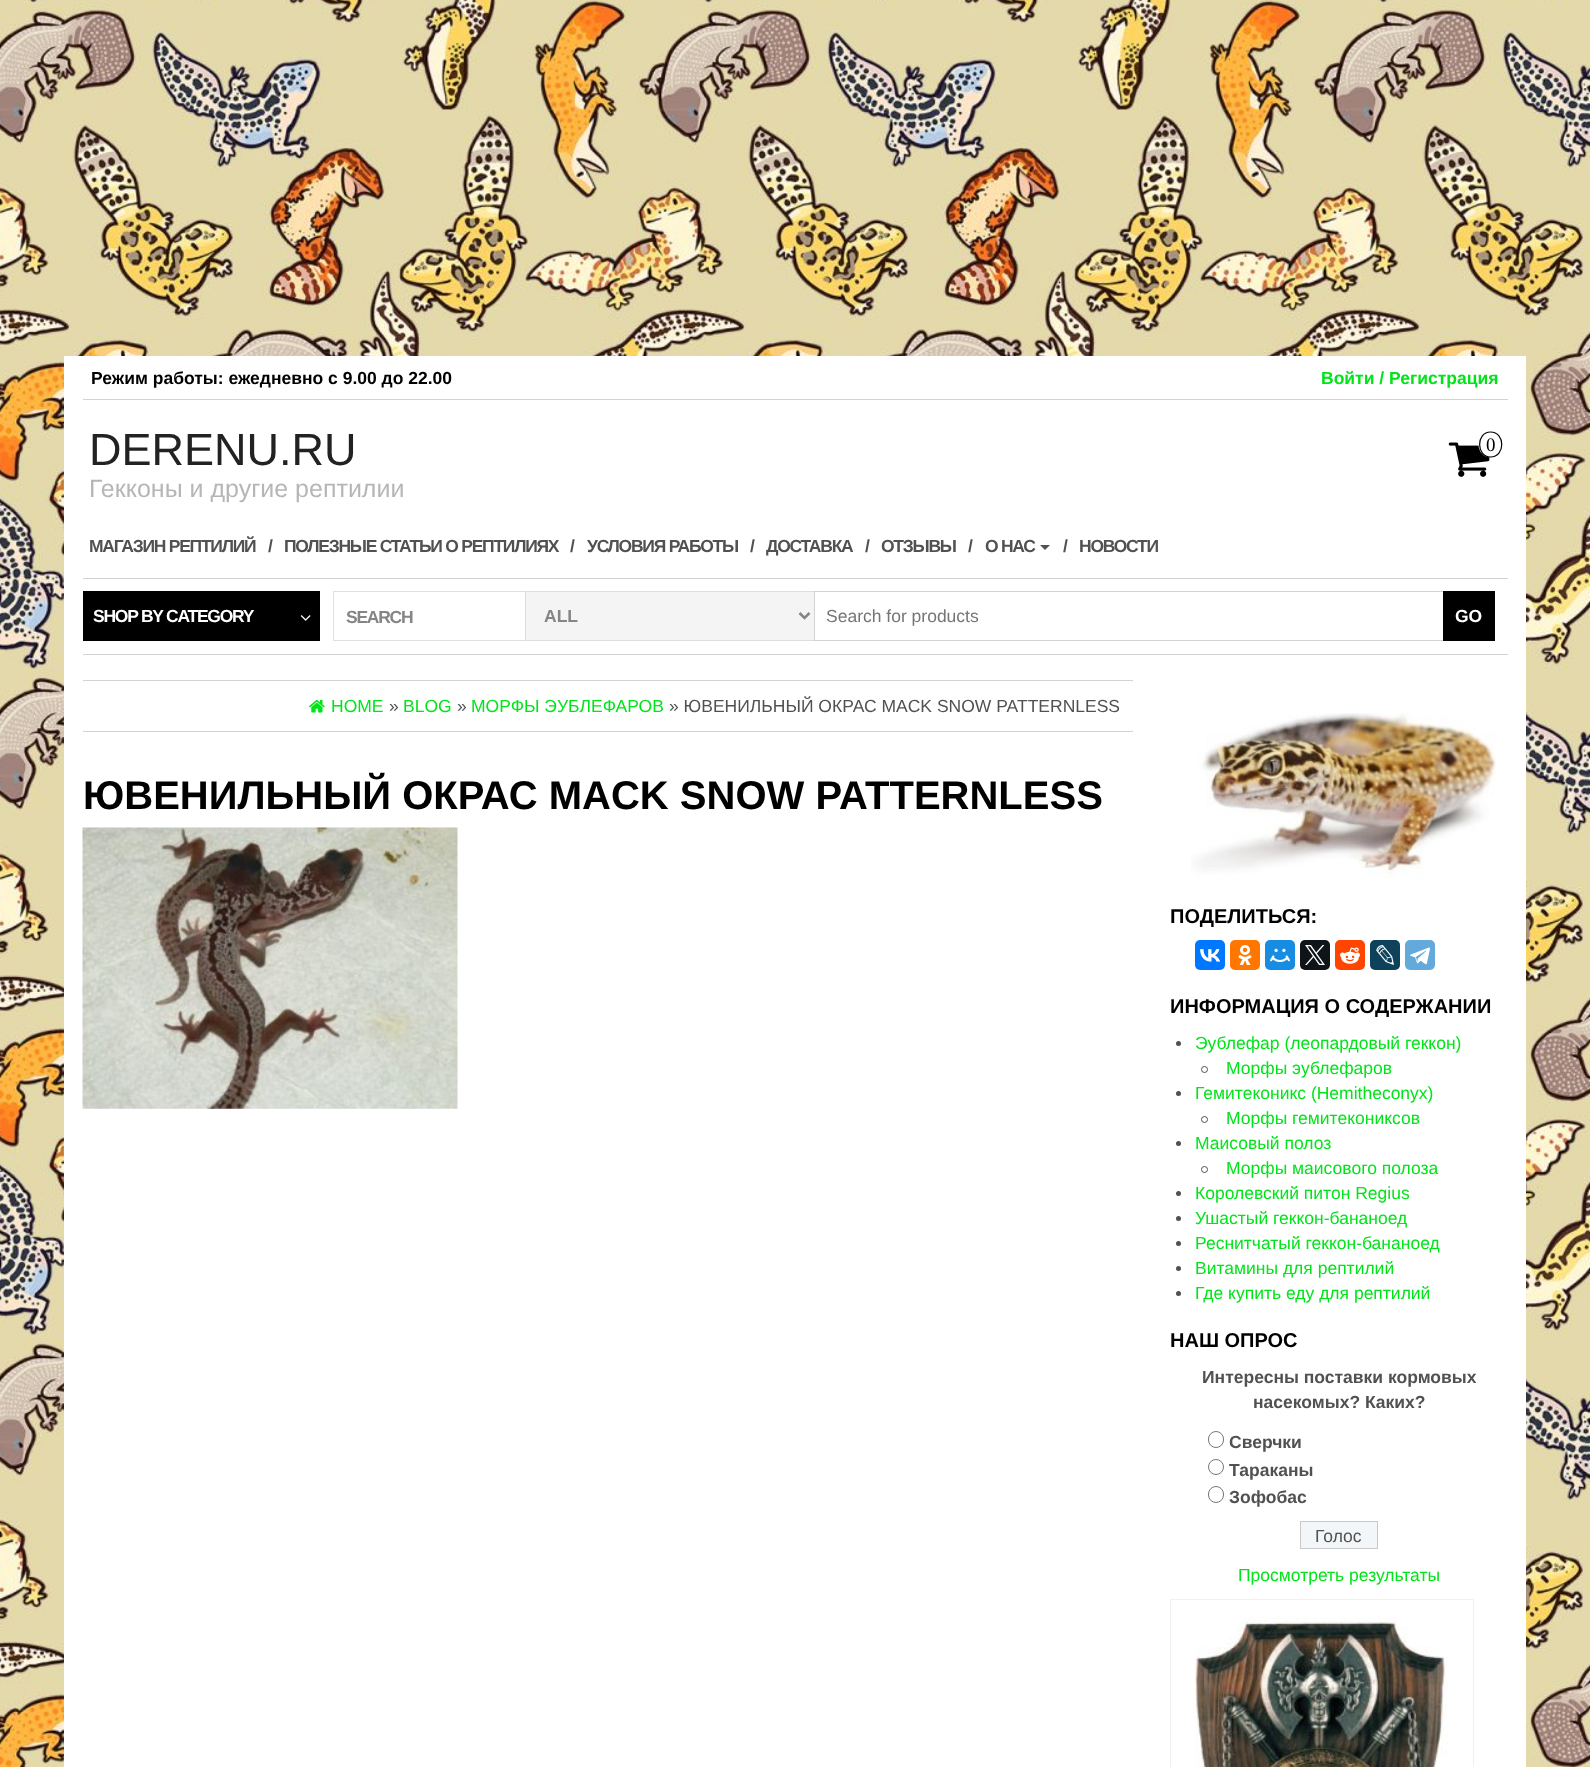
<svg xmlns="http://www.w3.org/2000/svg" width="1590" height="1767">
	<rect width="100%" height="100%" fill="#FFFFFF" />
	<image x="0" y="0" width="1590" height="1767" href="assets/img1.png" />
	<rect x="64" y="356" width="1462" height="1411" fill="#FFFFFF" />
	<rect x="83" y="399" width="1425" height="1" fill="#D3D3D3" />
	<text x="91" y="384" font-family="Liberation Sans" font-size="17.5" font-weight="700" fill="#000000">Режим работы: ежедневно с 9.00 до 22.00</text>
	<text x="1321" y="384" font-family="Liberation Sans" font-size="17.5" font-weight="700" fill="#00E419">Войти / Регистрация</text>
	<text x="89" y="465" font-family="Liberation Sans" font-size="45" fill="#222222">DERENU.RU</text>
	<text x="89" y="497" font-family="Liberation Sans" font-size="25" fill="#B6B6B6">Гекконы и другие рептилии</text>
	<image x="1448" y="442" width="42" height="35" href="assets/img2.png" />
	<ellipse cx="1490.5" cy="444.5" rx="12" ry="13" fill="#FFFFFF" />
	<path d="M1490.5 432C1505.5 432 1505.5 457 1490.5 457C1476 457 1476 432 1490.5 432Z" fill="none" stroke="#000000" stroke-width="1.2" />
	<text x="1486" y="451" font-family="Liberation Serif" font-size="19" fill="#000000">0</text>
	<rect x="83" y="578" width="1425" height="1" fill="#D3D3D3" />
	<g font-family="Liberation Sans" font-size="17.5" font-weight="700" letter-spacing="-1.25" fill="#515151">
		<text x="89" y="552">МАГАЗИН РЕПТИЛИЙ</text>
		<text x="268" y="552">/</text>
		<text x="284" y="552">ПОЛЕЗНЫЕ СТАТЬИ О РЕПТИЛИЯХ</text>
		<text x="570" y="552">/</text>
		<text x="587" y="552">УСЛОВИЯ РАБОТЫ</text>
		<text x="750" y="552">/</text>
		<text x="766" y="552">ДОСТАВКА</text>
		<text x="865" y="552">/</text>
		<text x="881" y="552">ОТЗЫВЫ</text>
		<text x="968" y="552">/</text>
		<text x="985" y="552">О НАС</text>
	</g>
	<path d="M1040 545H1050L1045 550Z" fill="#515151" />
	<g font-family="Liberation Sans" font-size="17.5" font-weight="700" letter-spacing="-1.25" fill="#515151">
		<text x="1063" y="552">/</text>
		<text x="1079" y="552">НОВОСТИ</text>
	</g>
	<rect x="83" y="654" width="1425" height="1" fill="#D3D3D3" />
	<rect x="83" y="591" width="237" height="50" fill="#000000" />
	<text x="93" y="622" font-family="Liberation Sans" font-size="17.5" font-weight="700" letter-spacing="-1.25" fill="#FFFFFF">SHOP BY CATEGORY</text>
	<image x="300" y="615" width="11" height="6" href="assets/img3.png" />
	<rect x="333.5" y="591.5" width="192" height="49" fill="none" stroke="#E0E0E0" />
	<text x="346" y="623" font-family="Liberation Sans" font-size="17.5" font-weight="700" letter-spacing="-1.25" fill="#858585">SEARCH</text>
	<rect x="525" y="591" width="289" height="50" fill="#EFEFEF" fill-opacity="0.7" />
	<rect x="525.5" y="591.5" width="289" height="49" fill="none" stroke="#D3D3D3" stroke-opacity="0.7" />
	<path d="M799.5 613L804.5 618L809.5 613" fill="none" stroke="#858585" stroke-width="2.5" />
	<text x="544" y="622" font-family="Liberation Sans" font-size="17.5" font-weight="700" fill="#858585">ALL</text>
	<rect x="814.5" y="591.5" width="678" height="49" fill="none" stroke="#D3D3D3" />
	<text x="826" y="622" font-family="Liberation Sans" font-size="17.5" fill="#757575">Search for products</text>
	<rect x="1443" y="591" width="52" height="50" fill="#000000" />
	<text x="1455" y="622" font-family="Liberation Sans" font-size="17.5" font-weight="700" fill="#FFFFFF">GO</text>
	<rect x="83" y="680" width="1050" height="1" fill="#D3D3D3" />
	<rect x="83" y="731" width="1050" height="1" fill="#D3D3D3" />
	<image x="309" y="700" width="16" height="13" href="assets/img4.png" />
	<text x="331" y="712" font-family="Liberation Sans" font-size="17.5" fill="#00E419">HOME</text>
	<text x="389" y="712" font-family="Liberation Sans" font-size="17.5" fill="#515151">»</text>
	<text x="403" y="712" font-family="Liberation Sans" font-size="17.5" fill="#00E419">BLOG</text>
	<text x="457" y="712" font-family="Liberation Sans" font-size="17.5" fill="#515151">»</text>
	<text x="471" y="712" font-family="Liberation Sans" font-size="17.5" fill="#00E419">МОРФЫ ЭУБЛЕФАРОВ</text>
	<text x="669" y="712" font-family="Liberation Sans" font-size="17.5" fill="#515151">» ЮВЕНИЛЬНЫЙ ОКРАС MACK SNOW PATTERNLESS</text>
	<text x="83" y="809" font-family="Liberation Sans" font-size="40" font-weight="700" fill="#000000">ЮВЕНИЛЬНЫЙ ОКРАС MACK SNOW PATTERNLESS</text>
	<image x="82" y="827" width="376" height="282" href="assets/img5.png" />
	<image x="1191" y="713" width="305" height="165" href="assets/img6.png" />
	<text x="1170" y="923" font-family="Liberation Sans" font-size="20" font-weight="700" fill="#000000">ПОДЕЛИТЬСЯ:</text>
	<rect x="1195" y="940" width="30" height="30" rx="5" fill="#0077FF" />
	<image x="1200" y="949" width="20" height="13" href="assets/img7.png" />
	<rect x="1230" y="940" width="30" height="30" rx="5" fill="#FF7700" />
	<image x="1238" y="945" width="14" height="20" href="assets/img8.png" />
	<rect x="1265" y="940" width="30" height="30" rx="5" fill="#168DE2" />
	<image x="1270" y="948" width="20" height="15" href="assets/img9.png" />
	<rect x="1300" y="940" width="30" height="30" rx="5" fill="#0F1419" />
	<image x="1305" y="945" width="20" height="20" href="assets/img10.png" />
	<rect x="1335" y="940" width="30" height="30" rx="5" fill="#FF4500" />
	<image x="1340" y="947" width="20" height="17" href="assets/img11.png" />
	<rect x="1370" y="940" width="30" height="30" rx="5" fill="#0D425A" />
	<image x="1376" y="945" width="18" height="20" href="assets/img12.png" />
	<rect x="1405" y="940" width="30" height="30" rx="5" fill="#64A9DC" />
	<image x="1410" y="947" width="20" height="18" href="assets/img13.png" />
	<text x="1170" y="1013" font-family="Liberation Sans" font-size="20" font-weight="700" fill="#000000">ИНФОРМАЦИЯ О СОДЕРЖАНИИ</text>
	<circle cx="1178.5" cy="1043.5" r="2.5" fill="#515151" />
	<text x="1195" y="1049" font-family="Liberation Sans" font-size="17.5" fill="#00E419">Эублефар (леопардовый геккон)</text>
	<circle cx="1204.5" cy="1069.5" r="3" fill="none" stroke="#515151" />
	<text x="1226" y="1074" font-family="Liberation Sans" font-size="17.5" fill="#00E419">Морфы эублефаров</text>
	<circle cx="1178.5" cy="1093.5" r="2.5" fill="#515151" />
	<text x="1195" y="1099" font-family="Liberation Sans" font-size="17.5" fill="#00E419">Гемитеконикс (Hemitheconyx)</text>
	<circle cx="1204.5" cy="1119.5" r="3" fill="none" stroke="#515151" />
	<text x="1226" y="1124" font-family="Liberation Sans" font-size="17.5" fill="#00E419">Морфы гемитекониксов</text>
	<circle cx="1178.5" cy="1143.5" r="2.5" fill="#515151" />
	<text x="1195" y="1149" font-family="Liberation Sans" font-size="17.5" fill="#00E419">Маисовый полоз</text>
	<circle cx="1204.5" cy="1169.5" r="3" fill="none" stroke="#515151" />
	<text x="1226" y="1174" font-family="Liberation Sans" font-size="17.5" fill="#00E419">Морфы маисового полоза</text>
	<circle cx="1178.5" cy="1193.5" r="2.5" fill="#515151" />
	<text x="1195" y="1199" font-family="Liberation Sans" font-size="17.5" fill="#00E419">Королевский питон Regius</text>
	<circle cx="1178.5" cy="1218.5" r="2.5" fill="#515151" />
	<text x="1195" y="1224" font-family="Liberation Sans" font-size="17.5" fill="#00E419">Ушастый геккон-бананоед</text>
	<circle cx="1178.5" cy="1243.5" r="2.5" fill="#515151" />
	<text x="1195" y="1249" font-family="Liberation Sans" font-size="17.5" fill="#00E419">Реснитчатый геккон-бананоед</text>
	<circle cx="1178.5" cy="1268.5" r="2.5" fill="#515151" />
	<text x="1195" y="1274" font-family="Liberation Sans" font-size="17.5" fill="#00E419">Витамины для рептилий</text>
	<circle cx="1178.5" cy="1293.5" r="2.5" fill="#515151" />
	<text x="1195" y="1299" font-family="Liberation Sans" font-size="17.5" fill="#00E419">Где купить еду для рептилий</text>
	<text x="1170" y="1347" font-family="Liberation Sans" font-size="20" font-weight="700" fill="#000000">НАШ ОПРОС</text>
	<g font-family="Liberation Sans" font-size="17.5" font-weight="700" fill="#515151">
		<text x="1202" y="1383">Интересны поставки кормовых</text>
		<text x="1253" y="1408">насекомых? Каких?</text>
	</g>
	<rect x="1208.5" y="1431.5" width="15" height="16" rx="7.5" fill="none" stroke="#767676" />
	<text x="1229" y="1448" font-family="Liberation Sans" font-size="17.5" font-weight="700" fill="#515151">Сверчки</text>
	<circle cx="1216" cy="1467" r="7.5" fill="none" stroke="#767676" />
	<text x="1229" y="1476" font-family="Liberation Sans" font-size="17.5" font-weight="700" fill="#515151">Тараканы</text>
	<rect x="1208.5" y="1486.5" width="15" height="16" rx="7.5" fill="none" stroke="#767676" />
	<text x="1229" y="1503" font-family="Liberation Sans" font-size="17.5" font-weight="700" fill="#515151">Зофобас</text>
	<rect x="1300.5" y="1521.5" width="77" height="27" fill="#F3F6F8" stroke="#C8C8C8" />
	<text x="1315" y="1542" font-family="Liberation Sans" font-size="17.5" fill="#515151">Голос</text>
	<text x="1238" y="1581" font-family="Liberation Sans" font-size="17.5" fill="#00E419">Просмотреть результаты</text>
	<rect x="1170.5" y="1599.5" width="303" height="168" fill="none" stroke="#F0F0F0" />
	<image x="1194" y="1617" width="254" height="150" href="assets/img14.png" />
</svg>
